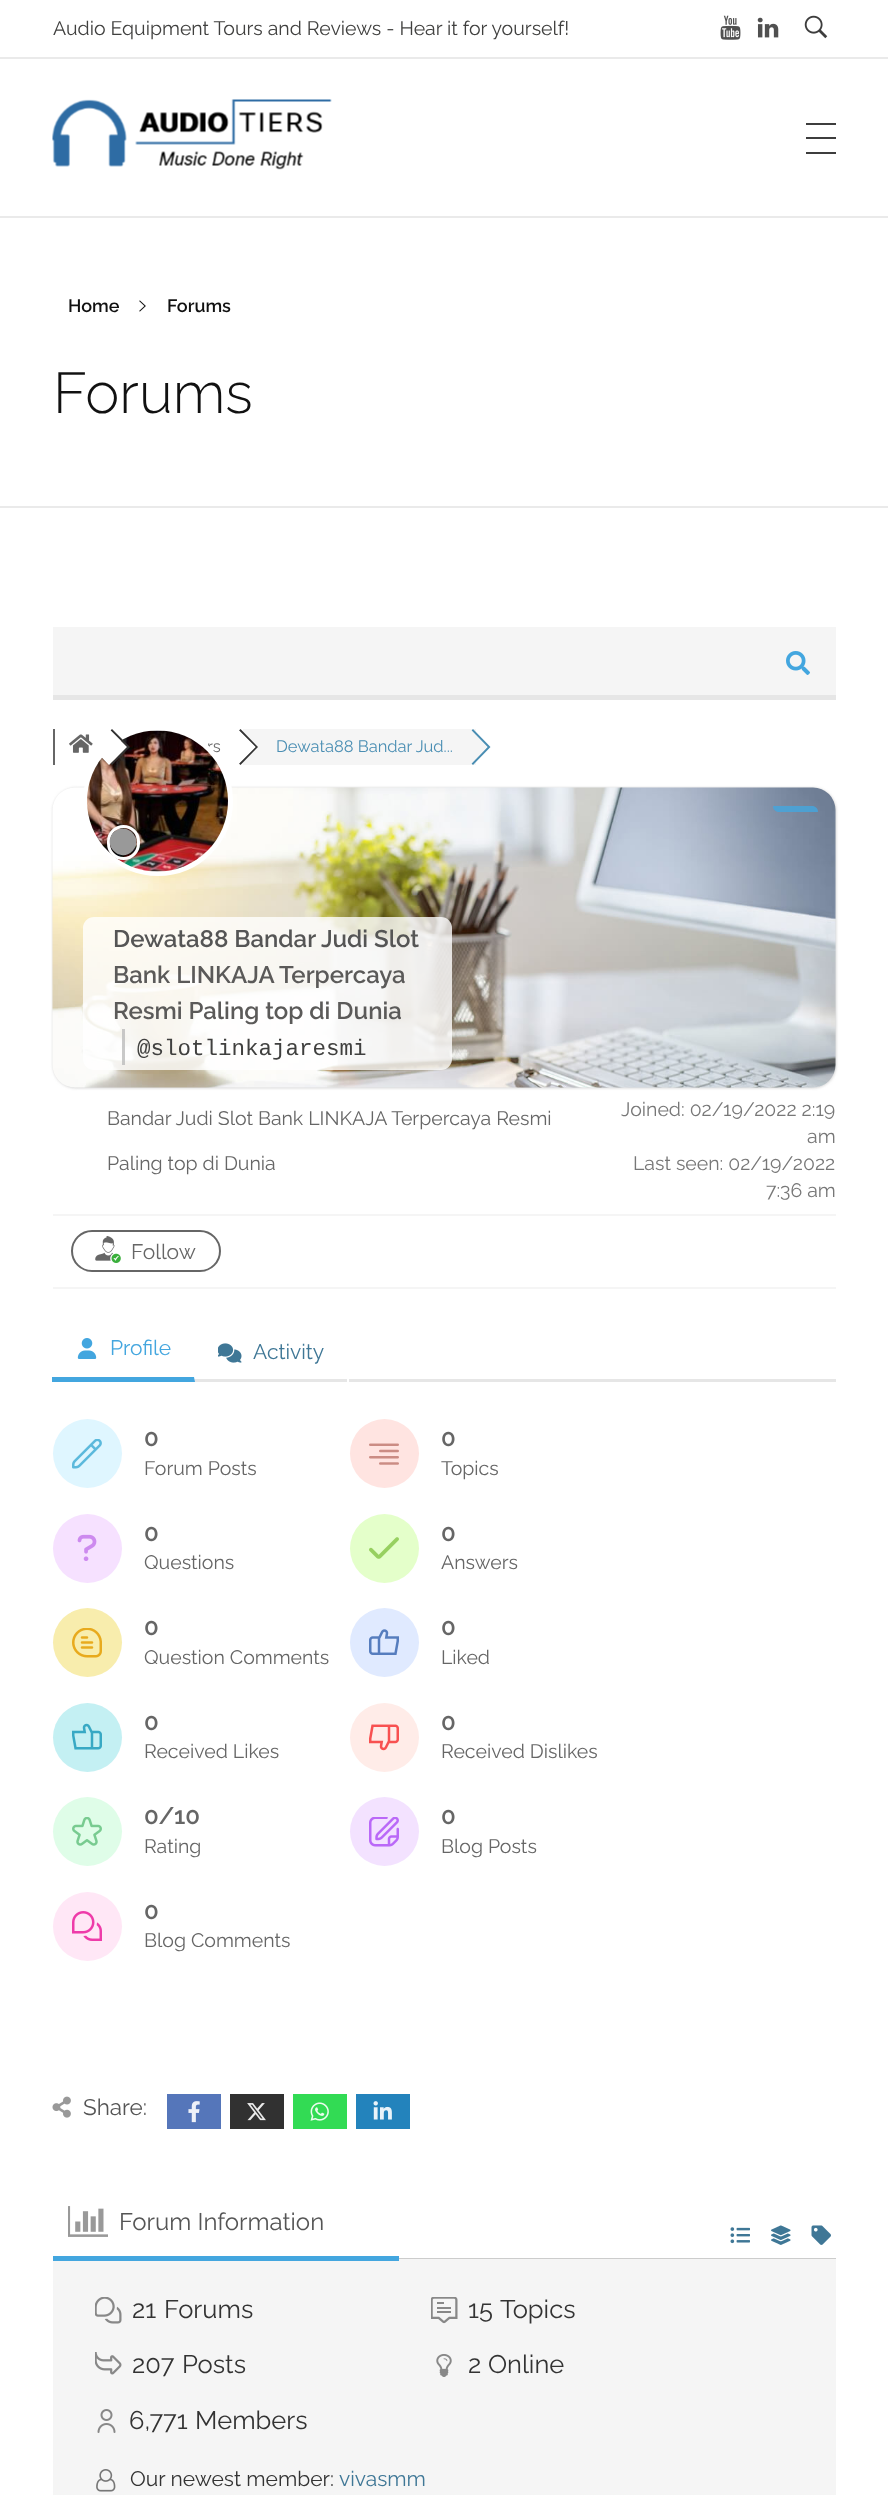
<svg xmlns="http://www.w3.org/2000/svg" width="888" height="2495">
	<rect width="100%" height="100%" fill="#FFFFFF" />
	<rect x="0" y="57" width="888" height="2" fill="#EAEAEA" />
	<text x="53" y="35" font-family="Raleway" font-size="19.5" fill="#40403F">Audio Equipment Tours and Reviews - Hear it for yourself!</text>
	<image x="720" y="15" width="21" height="25" href="assets/img1.png" />
	<image x="757" y="17" width="22" height="21" href="assets/img2.png" />
	<image x="804" y="15" width="24" height="24" href="assets/img3.png" />
	<rect x="0" y="216" width="888" height="2" fill="#EAEAEA" />
	<image x="52" y="99" width="280" height="71" href="assets/img4.png" />
	<rect x="806" y="123" width="30" height="2" fill="#3D3D3D" />
	<rect x="806" y="137" width="30" height="2" fill="#3D3D3D" />
	<rect x="806" y="152" width="30" height="2" fill="#3D3D3D" />
	<rect x="0" y="506" width="888" height="2" fill="#EAEAEA" />
	<text x="68" y="312" font-family="Raleway" font-size="18" font-weight="600" fill="#111111">Home</text>
	<image x="139" y="300" width="7" height="12" href="assets/img5.png" />
	<text x="167" y="312" font-family="Raleway" font-size="18" font-weight="600" fill="#111111">Forums</text>
	<text x="53" y="413" font-family="Raleway" font-size="57.5" font-weight="300" fill="#111111">Forums</text>
	<rect x="53" y="627" width="783" height="68" fill="#F5F5F5" />
	<rect x="53" y="695" width="783" height="5" fill="#E6E6E6" />
	<image x="786" y="651" width="24" height="24" href="assets/img6.png" />
	<rect x="53" y="729" width="2" height="36" fill="#666666" />
	<image x="69" y="734" width="24" height="19" href="assets/img7.png" />
	<text x="207" y="752" font-family="Raleway" font-size="16.5" fill="#666666">rs</text>
	<rect x="53" y="788" width="783" height="300" rx="23" fill="#CCCCCC" filter="blur(1.5px)" />
	<image x="52" y="787" width="784" height="301" href="assets/img8.png" />
	<circle cx="158" cy="801" r="72.5" fill="none" stroke="#FFFFFF" stroke-width="5" />
	<image x="87" y="730" width="141" height="142" href="assets/img9.png" />
	<path d="M112 729L110.5 730.5L127 747L110.5 763.5L112 765L130 747Z" fill="#333333" />
	<path d="M109 729L127 747L109 765L91.5 747Z" fill="#FFFFFF" />
	<rect x="243" y="729" width="233" height="36" fill="#F5F5F5" />
	<path d="M240.5 729L239 730.5L255.5 747L239 763.5L240.5 765L258 747Z" fill="#333333" />
	<path d="M237.5 729L255.5 747L237.5 765L219.5 747Z" fill="#FFFFFF" />
	<text x="276" y="752" font-family="Raleway" font-size="16.5" fill="#4A8EB3">Dewata88 Bandar Jud...</text>
	<path d="M473 729L471.5 730.5L487.5 747L471.5 763.5L473 765L490.5 747Z" fill="#4A8EB3" />
	<path d="M470 729L487.5 747L470 765L452 747Z" fill="#F5F5F5" />
	<path d="M773 806H812C815.5 806 818 808.5 818 812H779C775.5 812 773 809.5 773 806Z" fill="#43A6DF" fill-opacity="0.8" />
	<rect x="108.5" y="826.5" width="30" height="32" rx="15" fill="none" stroke="#FFFFFF" stroke-width="3" />
	<path d="M113.5 832.5C126 820.5 144.5 839 132.5 851C120 863.5 101.5 845 113.5 832.5Z" fill="#999999" />
	<rect x="83" y="917" width="369" height="153" rx="11" fill="#FFFFFF" fill-opacity="0.8" />
	<text x="113" y="947" font-family="Raleway" font-size="24" font-weight="600" fill="#555555">Dewata88 Bandar Judi Slot</text>
	<g font-family="Raleway" font-size="24" font-weight="600" fill="#5B5A59">
		<text x="113" y="983">Bank LINKAJA Terpercaya</text>
		<text x="113" y="1019">Resmi Paling top di Dunia</text>
	</g>
	<rect x="122" y="1029" width="3" height="36" fill="#BBBBBB" fill-opacity="0.8" />
	<text x="137" y="1055" font-family="Liberation Mono" font-size="22.5" fill="#40403F">@slotlinkajaresmi</text>
	<g font-family="Raleway" font-size="19.5" fill="#666666">
		<text x="107" y="1125">Bandar Judi Slot Bank LINKAJA Terpercaya Resmi</text>
		<text x="107" y="1170">Paling top di Dunia</text>
	</g>
	<g font-family="Raleway" font-size="19.5" fill="#777777">
		<text x="621" y="1116">Joined: 02/19/2022 2:19</text>
		<text x="807" y="1143">am</text>
		<text x="633" y="1170">Last seen: 02/19/2022</text>
		<text x="766" y="1197">7:36 am</text>
	</g>
	<rect x="53" y="1214" width="783" height="2" fill="#F5F5F5" />
	<rect x="53" y="1287" width="783" height="2" fill="#F5F5F5" />
	<rect x="72" y="1231" width="148" height="40" rx="20" fill="none" stroke="#666666" stroke-width="2" />
	<image x="95" y="1236" width="26" height="27" href="assets/img10.png" />
	<text x="131" y="1259" font-family="Raleway" font-size="21" fill="#666666">Follow</text>
	<rect x="194" y="1379" width="642" height="3" fill="#E6E6E6" />
	<path d="M195 1318V1382L194 1377V1318Z" fill="#FFFFFF" />
	<path d="M195 1382H52V1377H194Z" fill="#43A6DF" />
	<image x="77" y="1338" width="20" height="21" href="assets/img11.png" />
	<text x="110" y="1355" font-family="Raleway" font-size="21" fill="#43A6DF">Profile</text>
	<rect x="347" y="1379" width="2" height="3" fill="#FFFFFF" />
	<image x="218" y="1343" width="24" height="20" href="assets/img12.png" />
	<text x="253" y="1359" font-family="Raleway" font-size="21" fill="#3F7796">Activity</text>
	<circle cx="87.5" cy="1453.5" r="34.5" fill="#DFF6FF" />
	<image x="72" y="1439" width="30" height="30" href="assets/img13.png" />
	<text x="144" y="1446" font-family="Raleway" font-size="24" font-weight="600" fill="#666666">0</text>
	<text x="144" y="1475" font-family="Raleway" font-size="19.5" fill="#666666">Forum Posts</text>
	<circle cx="384.5" cy="1453.5" r="34.5" fill="#FFE4E1" />
	<image x="369" y="1443" width="30" height="22" href="assets/img14.png" />
	<text x="441" y="1446" font-family="Raleway" font-size="24" font-weight="600" fill="#666666">0</text>
	<text x="441" y="1475" font-family="Raleway" font-size="19.5" fill="#666666">Topics</text>
	<circle cx="87.5" cy="1548.5" r="34.5" fill="#F6E1FF" />
	<image x="77" y="1534" width="20" height="27" href="assets/img15.png" />
	<text x="144" y="1541" font-family="Raleway" font-size="24" font-weight="600" fill="#666666">0</text>
	<text x="144" y="1569" font-family="Raleway" font-size="19.5" fill="#666666">Questions</text>
	<circle cx="384.5" cy="1548.5" r="34.5" fill="#E4FFCA" />
	<image x="369" y="1537" width="30" height="22" href="assets/img16.png" />
	<text x="441" y="1541" font-family="Raleway" font-size="24" font-weight="600" fill="#666666">0</text>
	<text x="441" y="1569" font-family="Raleway" font-size="19.5" fill="#666666">Answers</text>
	<circle cx="87.5" cy="1642.5" r="34.5" fill="#F8EDAD" />
	<image x="72" y="1628" width="30" height="30" href="assets/img17.png" />
	<text x="144" y="1635" font-family="Raleway" font-size="24" font-weight="600" fill="#666666">0</text>
	<text x="144" y="1664" font-family="Raleway" font-size="19.5" fill="#666666">Question Comments</text>
	<circle cx="384.5" cy="1642.5" r="34.5" fill="#E0EAFF" />
	<image x="369" y="1629" width="30" height="26" href="assets/img18.png" />
	<text x="441" y="1635" font-family="Raleway" font-size="24" font-weight="600" fill="#666666">0</text>
	<text x="441" y="1664" font-family="Raleway" font-size="19.5" fill="#666666">Liked</text>
	<circle cx="87.5" cy="1737.5" r="34.5" fill="#C4F0F3" />
	<image x="72" y="1723" width="30" height="27" href="assets/img19.png" />
	<text x="144" y="1730" font-family="Raleway" font-size="24" font-weight="600" fill="#666666">0</text>
	<text x="144" y="1758" font-family="Raleway" font-size="19.5" fill="#666666">Received Likes</text>
	<circle cx="384.5" cy="1737.5" r="34.5" fill="#FFECE8" />
	<image x="369" y="1724" width="30" height="27" href="assets/img20.png" />
	<text x="441" y="1730" font-family="Raleway" font-size="24" font-weight="600" fill="#666666">0</text>
	<text x="441" y="1758" font-family="Raleway" font-size="19.5" fill="#666666">Received Dislikes</text>
	<circle cx="87.5" cy="1831.5" r="34.5" fill="#DFFDE8" />
	<image x="72" y="1817" width="30" height="29" href="assets/img21.png" />
	<text x="144" y="1824" font-family="Raleway" font-size="24" font-weight="600" fill="#666666">0/10</text>
	<text x="144" y="1853" font-family="Raleway" font-size="19.5" fill="#666666">Rating</text>
	<circle cx="384.5" cy="1831.5" r="34.5" fill="#F3E2FF" />
	<image x="369" y="1817" width="30" height="30" href="assets/img22.png" />
	<text x="441" y="1824" font-family="Raleway" font-size="24" font-weight="600" fill="#666666">0</text>
	<text x="441" y="1853" font-family="Raleway" font-size="19.5" fill="#666666">Blog Posts</text>
	<circle cx="87.5" cy="1926.5" r="34.5" fill="#FFE7F6" />
	<image x="72" y="1911" width="30" height="30" href="assets/img23.png" />
	<text x="144" y="1919" font-family="Raleway" font-size="24" font-weight="600" fill="#666666">0</text>
	<text x="144" y="1947" font-family="Raleway" font-size="19.5" fill="#666666">Blog Comments</text>
	<image x="52" y="2096" width="19" height="22" href="assets/img24.png" />
	<text x="83" y="2115" font-family="Raleway" font-size="22.5" fill="#555555">Share:</text>
	<rect x="167" y="2094" width="54" height="35" fill="#5576BA" />
	<image x="188" y="2101" width="12" height="22" href="assets/img25.png" />
	<rect x="230" y="2094" width="54" height="35" fill="#313131" />
	<image x="247" y="2103" width="19" height="18" href="assets/img26.png" />
	<rect x="293" y="2094" width="54" height="35" fill="#32DB54" />
	<image x="310" y="2102" width="19" height="19" href="assets/img27.png" />
	<rect x="356" y="2094" width="54" height="35" fill="#2383BC" />
	<image x="373" y="2101" width="19" height="19" href="assets/img28.png" />
	<rect x="399" y="2258" width="437" height="1" fill="#CCCCCC" />
	<rect x="53" y="2259" width="783" height="236" fill="#F5F5F5" />
	<rect x="53" y="2256" width="346" height="5" fill="#43A6DF" />
	<image x="68" y="2206" width="40" height="31" href="assets/img29.png" />
	<text x="119" y="2230" font-family="Raleway" font-size="24" fill="#555555">Forum Information</text>
	<image x="730" y="2227" width="20" height="17" href="assets/img30.png" />
	<image x="771" y="2225" width="20" height="20" href="assets/img31.png" />
	<image x="811" y="2225" width="20" height="20" href="assets/img32.png" />
	<image x="95" y="2297" width="27" height="27" href="assets/img33.png" />
	<g font-family="Raleway" font-size="25.5" fill="#333333">
		<text x="132" y="2318">21</text>
		<text x="164" y="2318">Forums</text>
	</g>
	<image x="431" y="2297" width="27" height="27" href="assets/img34.png" />
	<g font-family="Raleway" font-size="25.5" fill="#333333">
		<text x="468" y="2318">15</text>
		<text x="500" y="2318">Topics</text>
	</g>
	<image x="95" y="2352" width="27" height="23" href="assets/img35.png" />
	<g font-family="Raleway" font-size="25.5" fill="#333333">
		<text x="132" y="2373">207</text>
		<text x="182" y="2373">Posts</text>
	</g>
	<image x="436" y="2354" width="16" height="23" href="assets/img36.png" />
	<g font-family="Raleway" font-size="25.5" fill="#333333">
		<text x="468" y="2373">2</text>
		<text x="488" y="2373">Online</text>
	</g>
	<image x="97" y="2409" width="19" height="24" href="assets/img37.png" />
	<g font-family="Raleway" font-size="25.5" fill="#333333">
		<text x="129" y="2429">6,771</text>
		<text x="195" y="2429">Members</text>
	</g>
	<image x="96" y="2469" width="20" height="23" href="assets/img38.png" />
	<text x="130" y="2486" font-family="Raleway" font-size="21" fill="#333333">Our newest member:</text>
	<text x="339" y="2486" font-family="Raleway" font-size="21" fill="#3F7796">vivasmm</text>
</svg>
